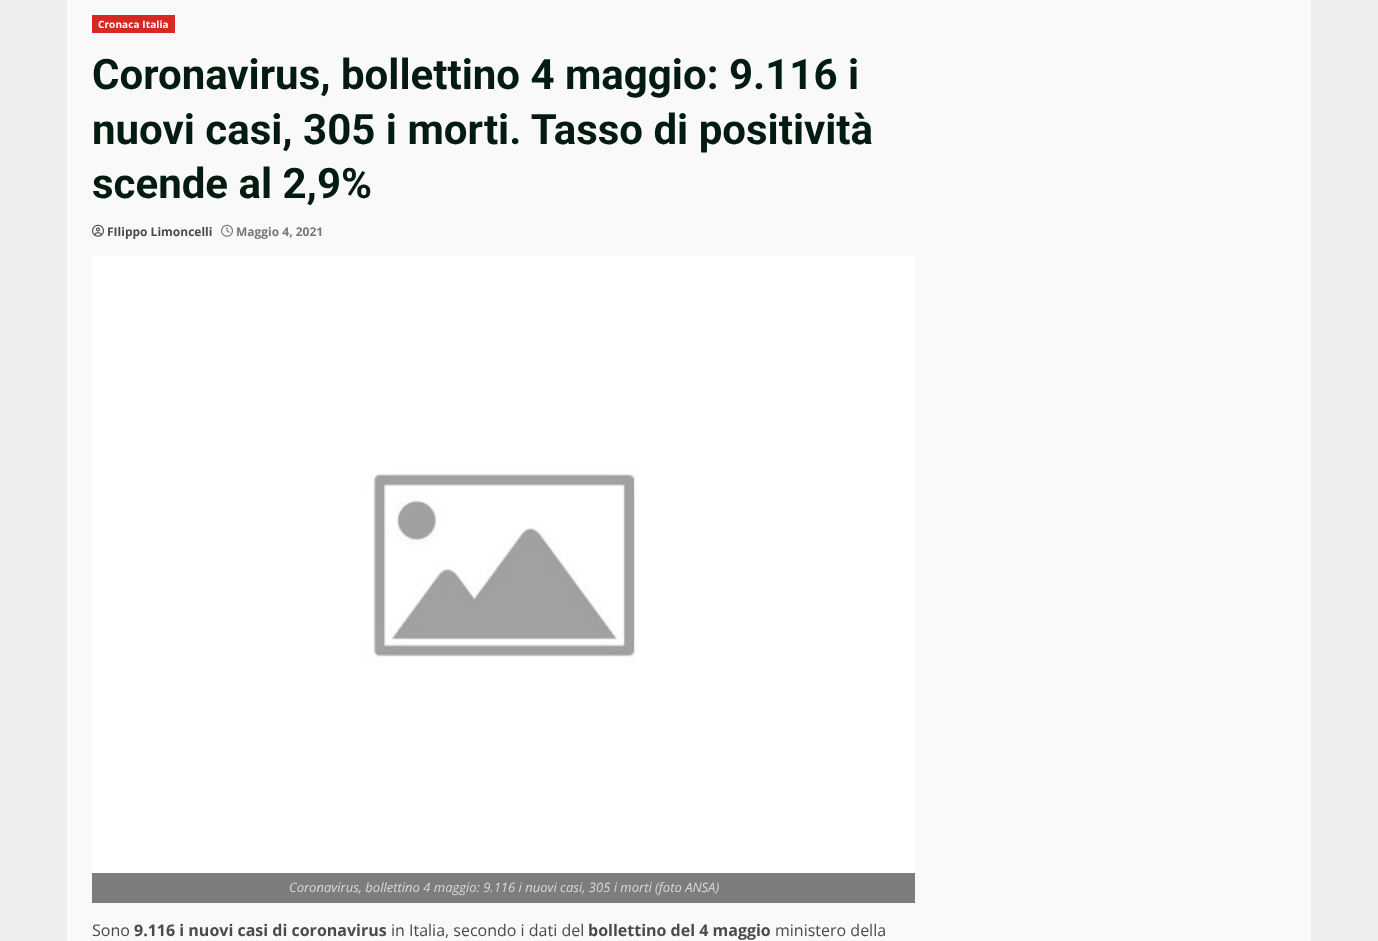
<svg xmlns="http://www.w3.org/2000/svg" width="1378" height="941">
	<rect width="100%" height="100%" fill="#EEEEEE" />
	<rect x="67" y="0" width="1244" height="941" fill="#F9F9F9" />
	<rect x="92" y="15" width="83" height="18" fill="#D72924" />
	<text x="98" y="28" font-family="Open Sans" font-size="10" font-weight="700" letter-spacing="0.1" fill="#FFFFFF">Cronaca Italia</text>
	<g font-family="Roboto" font-size="42" font-weight="700" fill="#031B11">
		<text x="92" y="89">Coronavirus, bollettino 4 maggio: 9.116 i</text>
		<text x="92" y="144">nuovi casi, 305 i morti. Tasso di positività</text>
		<text x="92" y="198">scende al 2,9%</text>
	</g>
	<image x="92" y="224" width="12" height="13" href="assets/img1.png" />
	<text x="107" y="236" font-family="Open Sans" font-size="12" font-weight="700" fill="#4A4A4A">FIlippo Limoncelli</text>
	<image x="221" y="224" width="12" height="13" href="assets/img2.png" />
	<text x="236" y="236" font-family="Open Sans" font-size="12" font-weight="700" fill="#767676">Maggio 4, 2021</text>
	<image x="92" y="256" width="823" height="617" href="assets/img3.png" />
	<rect x="92" y="873" width="823" height="30" fill="#7D7D7D" />
	<text x="289" y="892" font-family="Open Sans" font-size="13" font-style="italic" fill="#D8D8D8">Coronavirus, bollettino 4 maggio: 9.116 i nuovi casi, 305 i morti (foto ANSA)</text>
	<text x="92" y="936" font-family="Open Sans" font-size="16" fill="#4A4A4A">Sono</text>
	<text x="134" y="936" font-family="Open Sans" font-size="16" font-weight="700" fill="#4A4A4A">9.116 i nuovi casi di coronavirus</text>
	<text x="391" y="936" font-family="Open Sans" font-size="16" fill="#4A4A4A">in Italia, secondo i dati del</text>
	<text x="588" y="936" font-family="Open Sans" font-size="16" font-weight="700" fill="#4A4A4A">bollettino del 4 maggio</text>
	<text x="775" y="936" font-family="Open Sans" font-size="16" fill="#4A4A4A">ministero della</text>
</svg>
